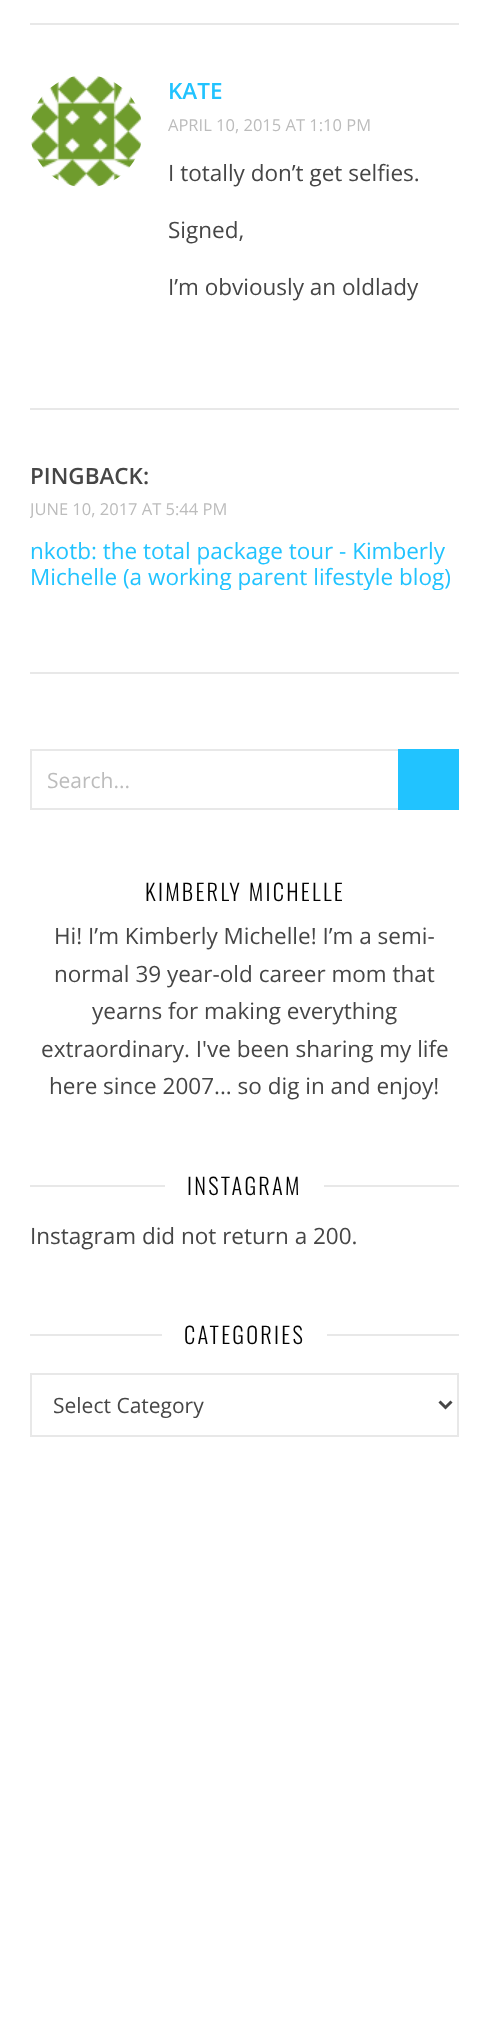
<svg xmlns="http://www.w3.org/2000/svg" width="488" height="2025">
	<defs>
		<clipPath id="clip1"><rect x="30" y="461" width="429" height="129" /></clipPath>
	</defs>
	<rect width="100%" height="100%" fill="#FFFFFF" />
	<rect x="30" y="23" width="429" height="2" fill="#E8E8E8" />
	<rect x="30" y="408" width="429" height="2" fill="#E8E8E8" />
	<image x="31" y="76" width="111" height="111" href="assets/img1.png" />
	<text x="168" y="99" font-family="Open Sans" font-size="22.5" font-weight="600" fill="#21C3FF">KATE</text>
	<text x="168" y="131" font-family="Open Sans" font-size="16.5" fill="#BCBCBC">APRIL 10, 2015 AT 1:10 PM</text>
	<g font-family="Open Sans" font-size="22.5" fill="#464646">
		<text x="168" y="181">I totally don’t get selfies.</text>
		<text x="168" y="238">Signed,</text>
		<text x="168" y="295">I’m obviously an oldlady</text>
	</g>
	<rect x="30" y="672" width="429" height="2" fill="#E8E8E8" />
	<text x="30" y="484" font-family="Open Sans" font-size="22.5" font-weight="600" fill="#464646">PINGBACK:</text>
	<g clip-path="url(#clip1)">
		<text x="30" y="515" font-family="Open Sans" font-size="16.5" fill="#BCBCBC">JUNE 10, 2017 AT 5:44 PM</text>
	</g>
	<text x="30" y="559" font-family="Open Sans" font-size="22.5" fill="#21C3FF">nkotb: the total package tour - Kimberly</text>
	<g clip-path="url(#clip1)">
		<text x="30" y="585" font-family="Open Sans" font-size="22.5" fill="#21C3FF">Michelle (a working parent lifestyle blog)</text>
	</g>
	<rect x="31" y="750" width="427" height="59" fill="none" stroke="#E8E8E8" stroke-width="2" />
	<text x="47" y="788" font-family="Open Sans" font-size="21" fill="#BCBCBC">Search...</text>
	<rect x="398" y="749" width="61" height="61" fill="#21C3FF" />
	<text x="145" y="901" font-family="Oswald" font-size="22.5" font-weight="300" letter-spacing="2.25" fill="#030303">KIMBERLY MICHELLE</text>
	<g font-family="Open Sans" font-size="22.5" fill="#464646">
		<text x="54" y="944">Hi! I’m Kimberly Michelle! I’m a semi-</text>
		<text x="54" y="982">normal 39 year-old career mom that</text>
		<text x="92" y="1019">yearns for making everything</text>
		<text x="41" y="1057">extraordinary. I've been sharing my life</text>
		<text x="49" y="1094">here since 2007... so dig in and enjoy!</text>
	</g>
	<rect x="30" y="1185" width="135" height="2" fill="#E8E8E8" />
	<text x="187" y="1195" font-family="Oswald" font-size="22.5" font-weight="300" letter-spacing="2.25" fill="#030303">INSTAGRAM</text>
	<rect x="324" y="1185" width="135" height="2" fill="#E8E8E8" />
	<text x="30" y="1244" font-family="Open Sans" font-size="22.5" fill="#464646">Instagram did not return a 200.</text>
	<rect x="30" y="1334" width="132" height="2" fill="#E8E8E8" />
	<text x="184" y="1344" font-family="Oswald" font-size="22.5" font-weight="300" letter-spacing="2.25" fill="#030303">CATEGORIES</text>
	<rect x="327" y="1334" width="132" height="2" fill="#E8E8E8" />
	<rect x="31" y="1374" width="427" height="62" fill="none" stroke="#E8E8E8" stroke-width="2" />
	<path d="M439.5 1401.5L445.5 1407.5L451.5 1401.5" fill="none" stroke="#464646" stroke-width="3" />
	<text x="53" y="1413" font-family="Open Sans" font-size="21" fill="#464646">Select Category</text>
</svg>
